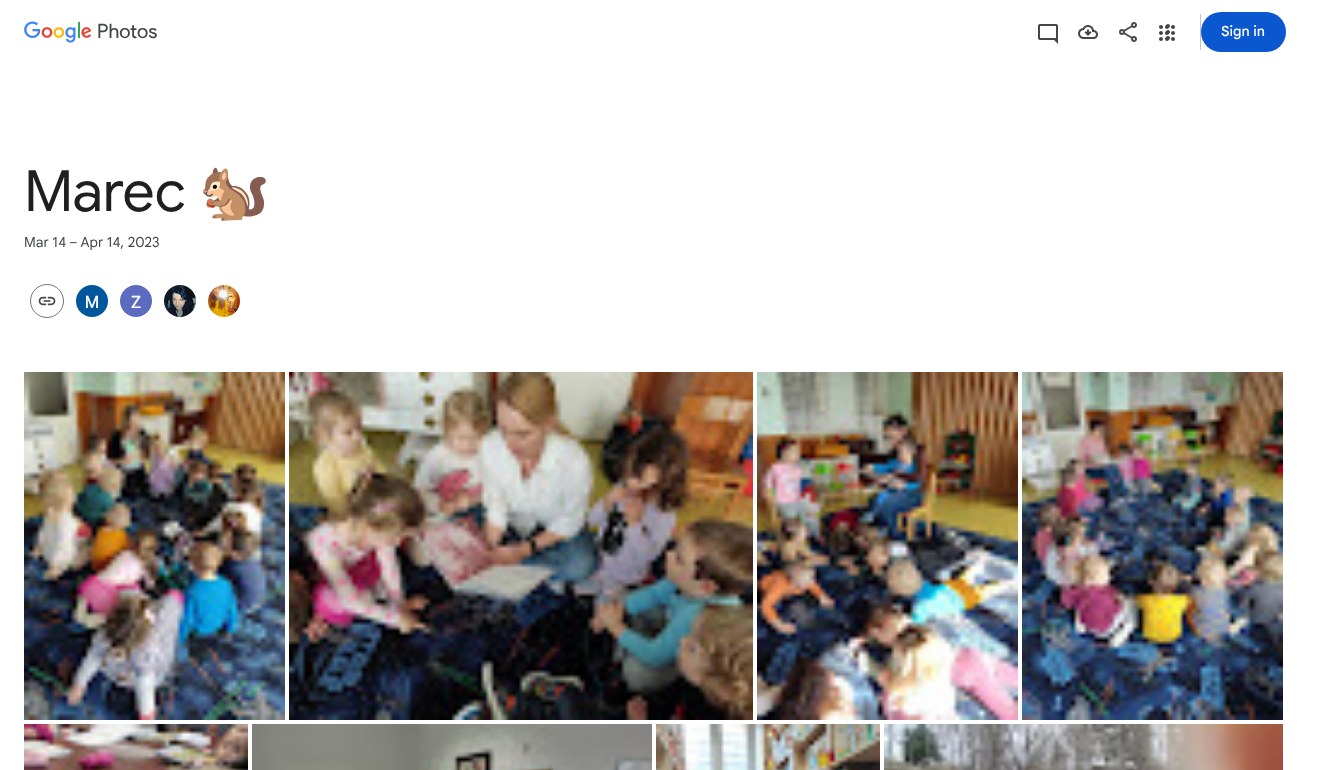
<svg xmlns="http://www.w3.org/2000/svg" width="1322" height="770">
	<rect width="100%" height="100%" fill="#FFFFFF" />
	<image x="24" y="21" width="68" height="22" href="assets/img1.png" />
	<text x="97" y="38" font-family="Product Sans" font-size="20" fill="#444746">Photos</text>
	<image x="1038" y="24" width="20" height="20" href="assets/img2.png" />
	<image x="1078" y="25" width="20" height="14" href="assets/img3.png" />
	<image x="1119" y="22" width="18" height="20" href="assets/img4.png" />
	<image x="1166" y="24" width="4" height="16" href="assets/img5.png" />
	<rect x="1200" y="14" width="1" height="36" fill="#C4C7C5" />
	<text x="24" y="211" font-family="Google Sans" font-size="57" fill="#1F1F1F">Marec</text>
	<text x="199" y="211" font-family="Noto Color Emoji" font-size="57" fill="#1F1F1F">🐿️</text>
	<text x="24" y="247" font-family="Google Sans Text" font-size="14" fill="#444746">Mar 14 – Apr 14, 2023</text>
	<circle cx="47" cy="301" r="16.5" fill="none" stroke="#747775" />
	<image x="38" y="296" width="18" height="10" href="assets/img6.png" />
	<image x="76" y="285" width="32" height="32" href="assets/img7.png" />
	<image x="120" y="285" width="32" height="32" href="assets/img8.png" />
	<image x="164" y="285" width="32" height="32" href="assets/img9.png" />
	<image x="208" y="285" width="32" height="32" href="assets/img10.png" />
	<image x="24" y="372" width="261" height="348" href="assets/img11.png" />
	<image x="289" y="372" width="464" height="348" href="assets/img12.png" />
	<image x="757" y="372" width="261" height="348" href="assets/img13.png" />
	<image x="1022" y="372" width="261" height="348" href="assets/img14.png" />
	<image x="24" y="724" width="224" height="46" href="assets/img15.png" />
	<image x="252" y="724" width="400" height="46" href="assets/img16.png" />
	<image x="656" y="724" width="224" height="46" href="assets/img17.png" />
	<image x="884" y="724" width="399" height="46" href="assets/img18.png" />
	<image x="1159" y="25" width="16" height="16" href="assets/img19.png" />
	<rect x="1201" y="12" width="85" height="40" rx="20" fill="#0B57D0" />
	<text x="1221" y="36" font-family="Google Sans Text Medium" font-size="14" font-weight="500" fill="#FFFFFF">Sign in</text>
</svg>
